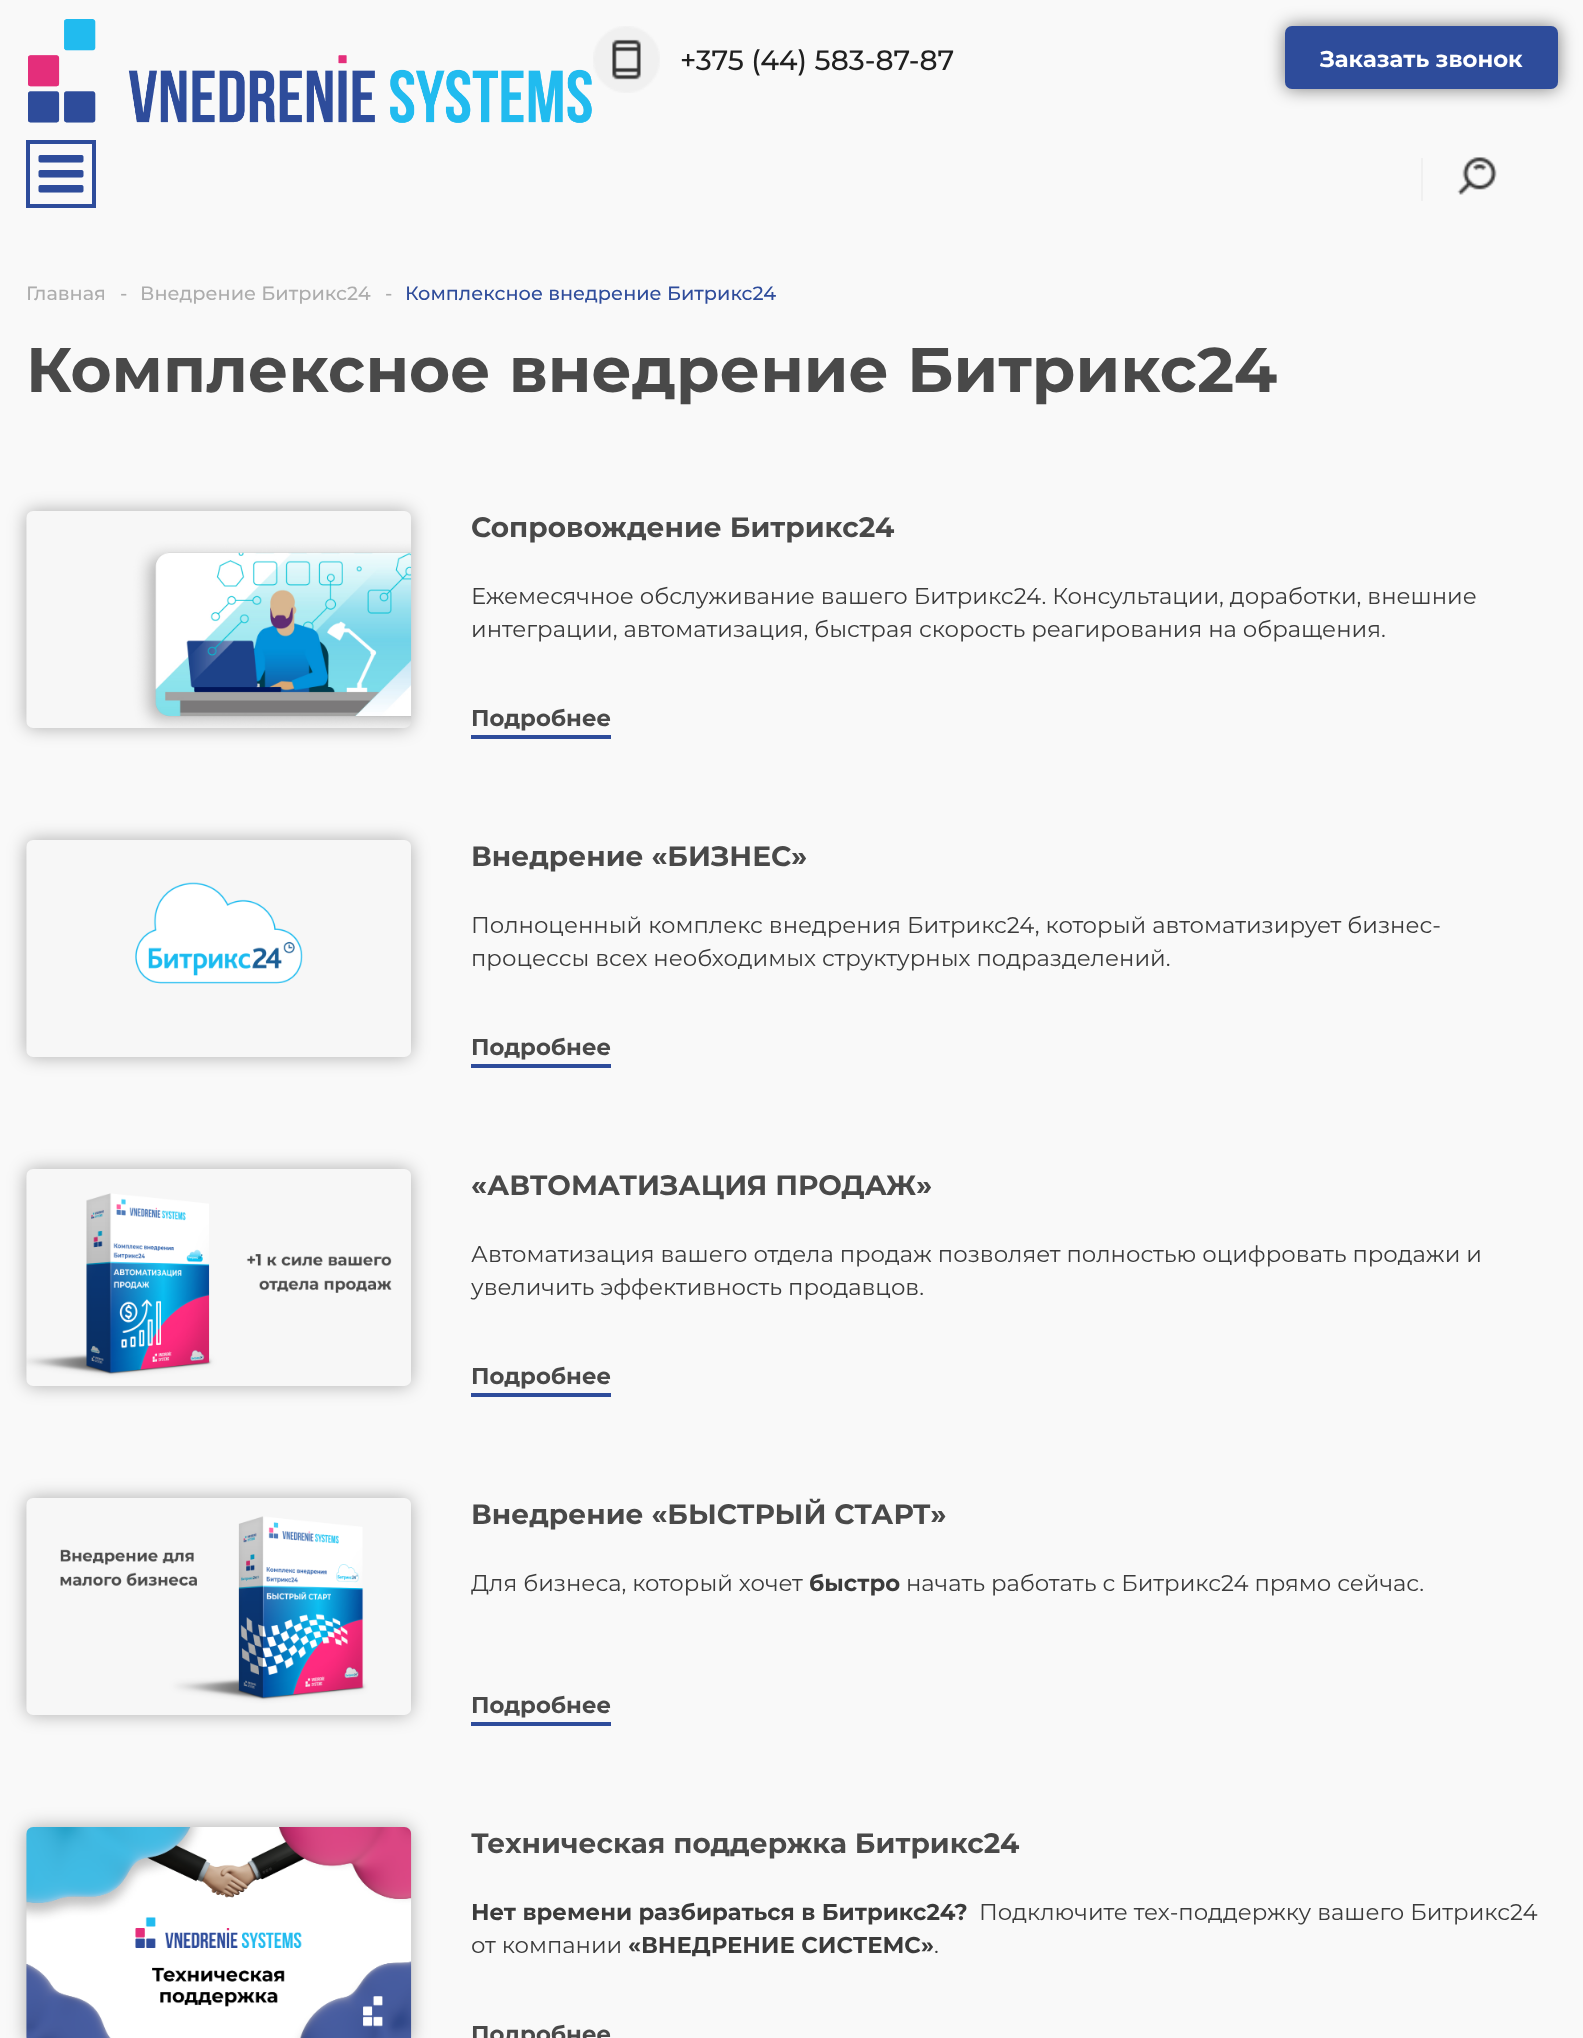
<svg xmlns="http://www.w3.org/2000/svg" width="1583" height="2038">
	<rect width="100%" height="100%" fill="#F9F9F9" />
	<image x="28" y="19" width="564" height="104" href="assets/img1.png" />
	<image x="593" y="26" width="67" height="67" href="assets/img2.png" />
	<text x="680" y="70" font-family="Montserrat" font-size="28" font-weight="500" fill="#202020">+375 (44) 583-87-87</text>
	<rect x="1285" y="26" width="273" height="63" rx="7" fill="#000000" fill-opacity="0.5" filter="blur(9px)" />
	<rect x="1285" y="26" width="273" height="63" rx="7" fill="#2E4C9B" />
	<text x="1320" y="67" font-family="Montserrat" font-size="22.75" font-weight="700" fill="#FFFFFF">Заказать звонок</text>
	<rect x="28" y="142" width="66" height="64" fill="none" stroke="#2E4C9B" stroke-width="4" />
	<image x="38" y="155" width="46" height="38" href="assets/img3.png" />
	<rect x="1421" y="158" width="2" height="43" fill="#F0F0F0" />
	<image x="1457" y="157" width="40" height="38" href="assets/img4.png" />
	<g font-family="Montserrat" font-size="19.25" font-weight="500" fill="#ADADAD">
		<text x="26" y="300">Главная</text>
		<text x="120" y="300">-</text>
		<text x="140" y="300">Внедрение Битрикс24</text>
		<text x="385" y="300">-</text>
	</g>
	<text x="405" y="300" font-family="Montserrat" font-size="19.25" font-weight="500" fill="#2E4C9B">Комплексное внедрение Битрикс24</text>
	<text x="26" y="392" font-family="Montserrat" font-size="63" font-weight="700" fill="#494949">Комплексное внедрение Битрикс24</text>
	<rect x="26" y="511" width="385" height="217" rx="7" fill="#000000" fill-opacity="0.3" filter="blur(9px)" />
	<image x="26" y="511" width="386" height="217" href="assets/img5.png" />
	<text x="471" y="537" font-family="Montserrat" font-size="28" font-weight="700" fill="#494949">Сопровождение Битрикс24</text>
	<g font-family="Montserrat" font-size="22.75" fill="#3B3B3B">
		<text x="471" y="604">Ежемесячное обслуживание вашего Битрикс24. Консультации, доработки, внешние</text>
		<text x="471" y="637">интеграции, автоматизация, быстрая скорость реагирования на обращения.</text>
	</g>
	<text x="471" y="726" font-family="Montserrat" font-size="22.75" font-weight="700" fill="#494949">Подробнее</text>
	<rect x="471" y="735" width="140" height="4" fill="#2E4C9B" />
	<rect x="26" y="840" width="385" height="217" rx="7" fill="#000000" fill-opacity="0.3" filter="blur(9px)" />
	<image x="26" y="840" width="385" height="217" href="assets/img6.png" />
	<text x="471" y="866" font-family="Montserrat" font-size="28" font-weight="700" fill="#494949">Внедрение «БИЗНЕС»</text>
	<g font-family="Montserrat" font-size="22.75" fill="#3B3B3B">
		<text x="471" y="933">Полноценный комплекс внедрения Битрикс24, который автоматизирует бизнес-</text>
		<text x="471" y="966">процессы всех необходимых структурных подразделений.</text>
	</g>
	<text x="471" y="1055" font-family="Montserrat" font-size="22.75" font-weight="700" fill="#494949">Подробнее</text>
	<rect x="471" y="1064" width="140" height="4" fill="#2E4C9B" />
	<rect x="26" y="1169" width="385" height="217" rx="7" fill="#000000" fill-opacity="0.3" filter="blur(9px)" />
	<image x="26" y="1169" width="385" height="217" href="assets/img7.png" />
	<text x="471" y="1195" font-family="Montserrat" font-size="28" font-weight="700" fill="#494949">«АВТОМАТИЗАЦИЯ ПРОДАЖ»</text>
	<g font-family="Montserrat" font-size="22.75" fill="#3B3B3B">
		<text x="471" y="1262">Автоматизация вашего отдела продаж позволяет полностью оцифровать продажи и</text>
		<text x="471" y="1295">увеличить эффективность продавцов.</text>
	</g>
	<text x="471" y="1384" font-family="Montserrat" font-size="22.75" font-weight="700" fill="#494949">Подробнее</text>
	<rect x="471" y="1393" width="140" height="4" fill="#2E4C9B" />
	<rect x="26" y="1498" width="385" height="217" rx="7" fill="#000000" fill-opacity="0.3" filter="blur(9px)" />
	<image x="26" y="1498" width="385" height="217" href="assets/img8.png" />
	<text x="471" y="1524" font-family="Montserrat" font-size="28" font-weight="700" fill="#494949">Внедрение «БЫСТРЫЙ СТАРТ»</text>
	<text x="471" y="1591" font-family="Montserrat" font-size="22.75" fill="#3B3B3B">Для бизнеса, который хочет</text>
	<text x="809" y="1591" font-family="Montserrat" font-size="22.75" font-weight="700" fill="#3B3B3B">быстро</text>
	<text x="906" y="1591" font-family="Montserrat" font-size="22.75" fill="#3B3B3B">начать работать с Битрикс24 прямо сейчас.</text>
	<text x="471" y="1713" font-family="Montserrat" font-size="22.75" font-weight="700" fill="#494949">Подробнее</text>
	<rect x="471" y="1722" width="140" height="4" fill="#2E4C9B" />
	<rect x="26" y="1827" width="385" height="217" rx="7" fill="#000000" fill-opacity="0.3" filter="blur(9px)" />
	<image x="26" y="1827" width="386" height="211" href="assets/img9.png" />
	<text x="471" y="1853" font-family="Montserrat" font-size="28" font-weight="700" fill="#494949">Техническая поддержка Битрикс24</text>
	<text x="471" y="1920" font-family="Montserrat" font-size="22.75" font-weight="700" fill="#3B3B3B">Нет времени разбираться в Битрикс24?</text>
	<g font-family="Montserrat" font-size="22.75" fill="#3B3B3B">
		<text x="979" y="1920">Подключите тех-поддержку вашего Битрикс24</text>
		<text x="471" y="1953">от компании</text>
	</g>
	<text x="628" y="1953" font-family="Montserrat" font-size="22.75" font-weight="700" fill="#3B3B3B">«ВНЕДРЕНИЕ СИСТЕМС»</text>
	<text x="934" y="1953" font-family="Montserrat" font-size="22.75" fill="#3B3B3B">.</text>
	<text x="471" y="2042" font-family="Montserrat" font-size="22.75" font-weight="700" fill="#494949">Подробнее</text>
</svg>
